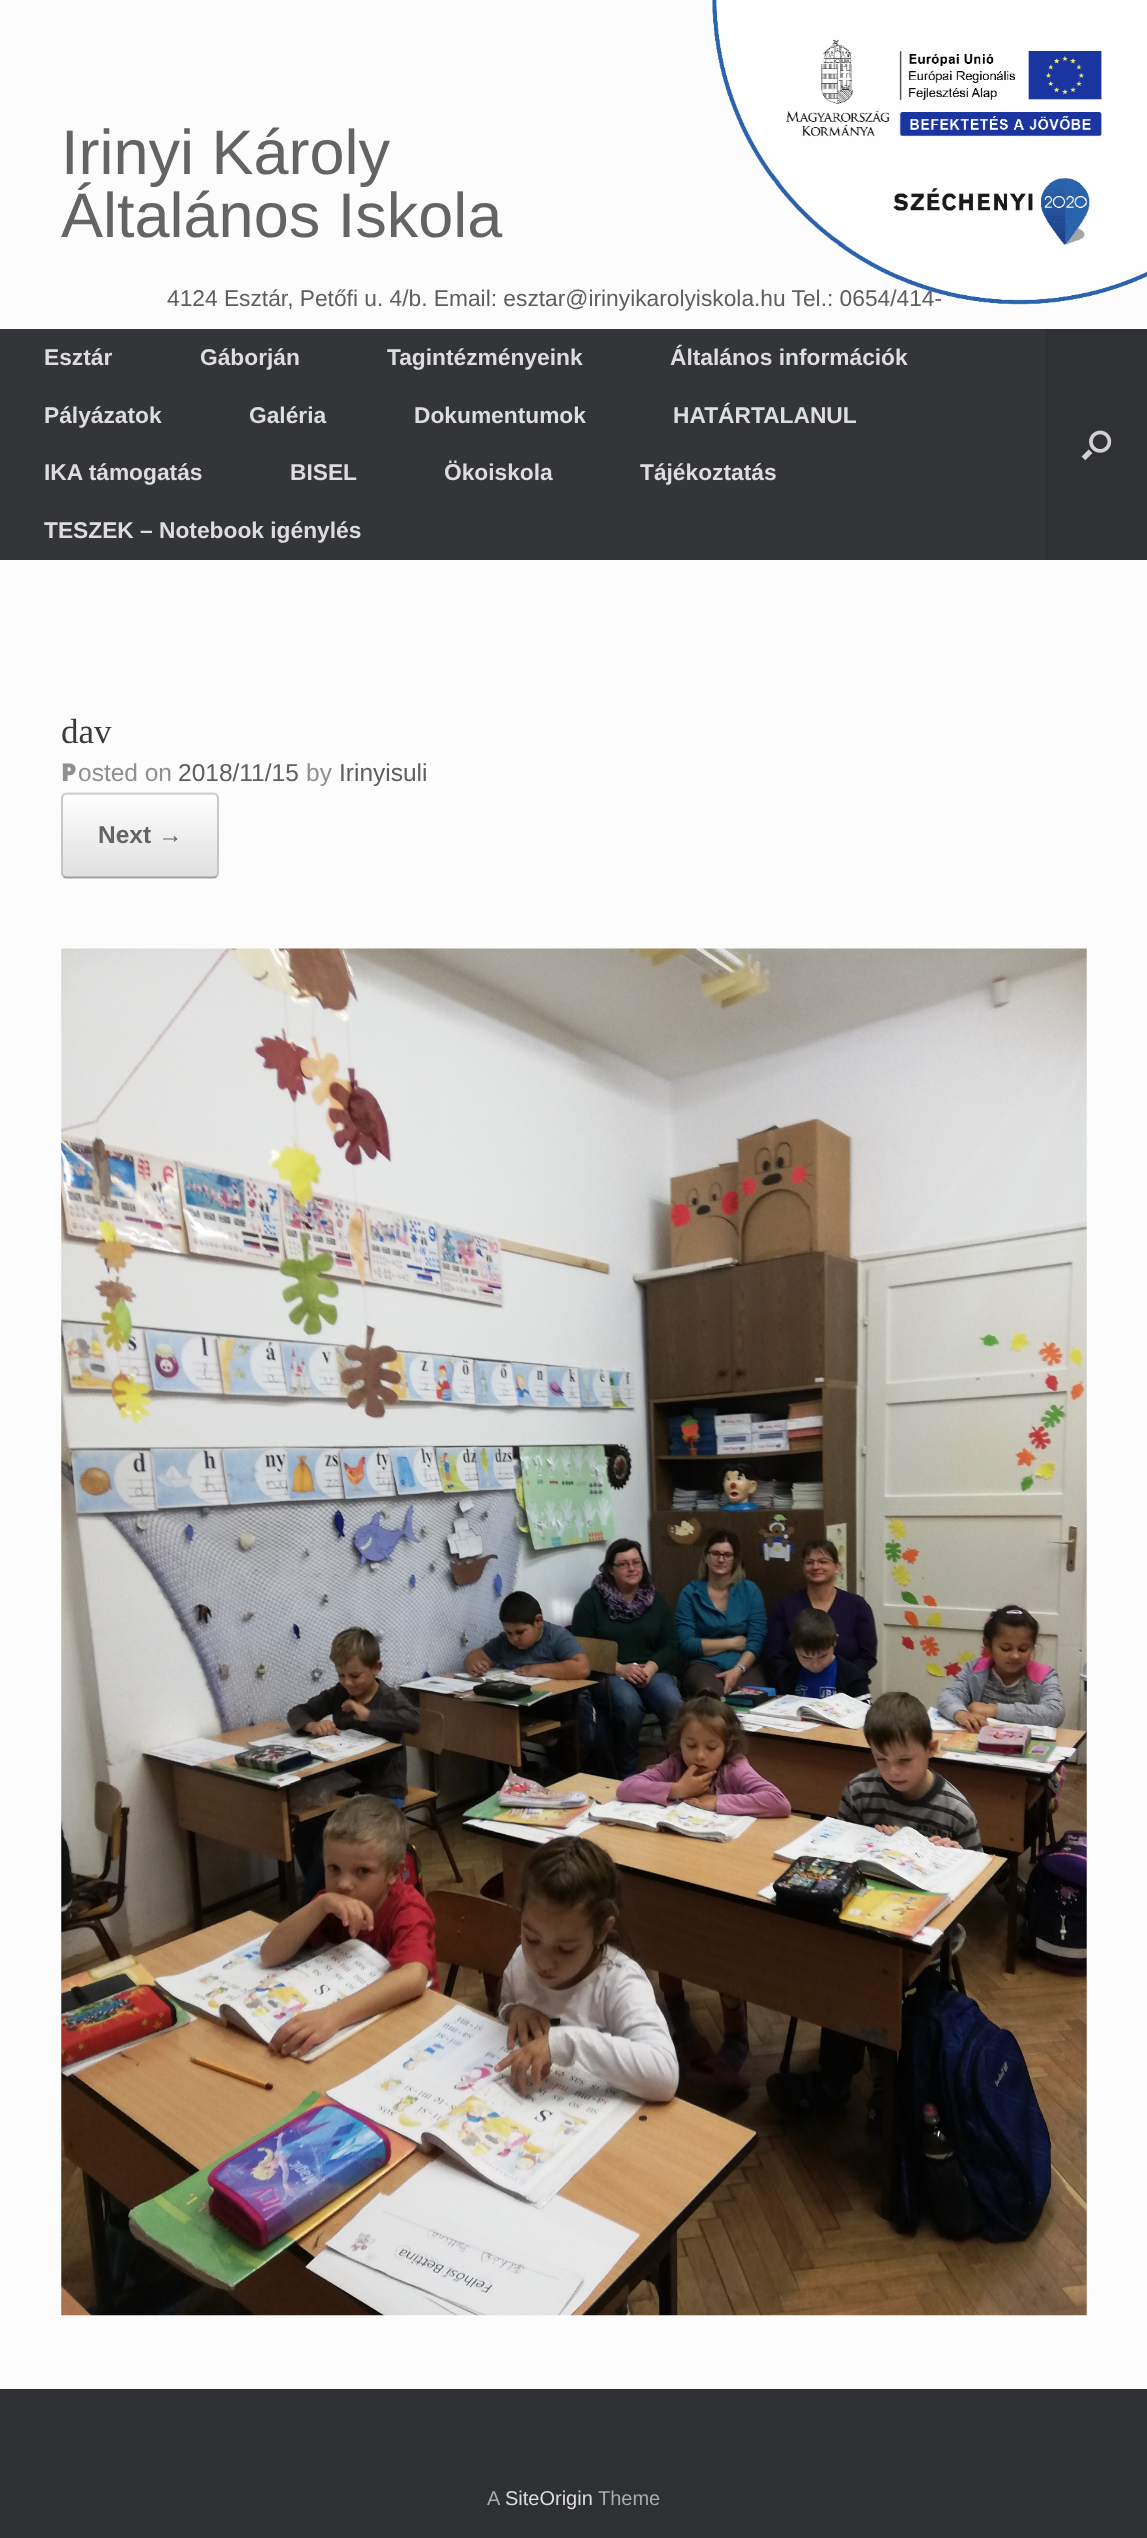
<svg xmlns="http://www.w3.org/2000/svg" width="1147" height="2538">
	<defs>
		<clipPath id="clip1"><rect x="61" y="793" width="158" height="86" rx="5" /></clipPath>
		<linearGradient id="g1" gradientUnits="userSpaceOnUse" x1="63" y1="795" x2="63" y2="712"><stop offset="0" stop-color="#DFDFDF" /><stop offset="1" stop-color="#FFFFFF" /></linearGradient>
		<linearGradient id="g2" gradientUnits="userSpaceOnUse" x1="63" y1="877" x2="63" y2="795"><stop offset="0" stop-color="#DFDFDF" /><stop offset="1" stop-color="#FFFFFF" /></linearGradient>
		<linearGradient id="g3" gradientUnits="userSpaceOnUse" x1="63" y1="959" x2="63" y2="877"><stop offset="0" stop-color="#DFDFDF" /><stop offset="1" stop-color="#FFFFFF" /></linearGradient>
	</defs>
	<rect width="100%" height="100%" fill="#FCFCFC" />
	<text x="167" y="306" font-family="Liberation Sans" font-size="22.75" fill="#5E5E5E">4124 Esztár, Petőfi u. 4/b. Email: esztar@irinyikarolyiskola.hu Tel.: 0654/414-</text>
	<image x="712" y="0" width="435" height="305" href="assets/img1.png" />
	<g font-family="Liberation Sans" font-size="63" fill="#646464">
		<text x="61" y="174">Irinyi Károly</text>
		<text x="61" y="237">Általános Iskola</text>
	</g>
	<rect x="0" y="329" width="1045" height="231" fill="#343538" />
	<g font-family="Liberation Sans" font-size="22.75" font-weight="700" fill="#DDDDDD">
		<text x="44" y="365">Esztár</text>
		<text x="200" y="365">Gáborján</text>
		<text x="387" y="365">Tagintézményeink</text>
		<text x="670" y="365">Általános információk</text>
		<text x="44" y="423">Pályázatok</text>
		<text x="249" y="423">Galéria</text>
		<text x="414" y="423">Dokumentumok</text>
		<text x="673" y="423">HATÁRTALANUL</text>
		<text x="44" y="480">IKA támogatás</text>
		<text x="290" y="480">BISEL</text>
		<text x="444" y="480">Ökoiskola</text>
		<text x="640" y="480">Tájékoztatás</text>
		<text x="44" y="538">TESZEK – Notebook igénylés</text>
	</g>
	<rect x="1045" y="329" width="102" height="231" fill="#303134" />
	<image x="1081" y="430" width="31" height="31" href="assets/img2.png" />
	<text x="61" y="743" font-family="Liberation Serif" font-size="35" fill="#3B3B3B">dav</text>
	<text x="61" y="781" font-family="Noto Sans" font-size="24.5" font-weight="900" fill="#8F8F8F">P</text>
	<text x="78" y="781" font-family="Liberation Sans" font-size="24.5" fill="#8F8F8F">osted on</text>
	<text x="178" y="781" font-family="Liberation Sans" font-size="24.5" fill="#5E5E5E">2018/11/15</text>
	<text x="306" y="781" font-family="Liberation Sans" font-size="24.5" fill="#8F8F8F">by</text>
	<text x="339" y="781" font-family="Liberation Sans" font-size="24.5" fill="#5E5E5E">Irinyisuli</text>
	<g clip-path="url(#clip1)">
		<rect x="61" y="793" width="158" height="2" fill="url(#g1)" />
		<rect x="61" y="795" width="158" height="82" fill="url(#g2)" />
		<rect x="61" y="877" width="158" height="2" fill="url(#g3)" />
	</g>
	<path d="M63.5 795C64 794 65.5 793.5 66.5 793.5H213.5C214.5 793.5 216 794 216.5 795" fill="none" stroke="#D2D2D2" stroke-width="1.8" />
	<path d="M216.5 795L218 797.5V873.5L216.5 876.5" fill="none" stroke="#C3C3C3" stroke-width="1.8" />
	<path d="M216.5 876.5C216 877 214.5 877.5 213.5 877.5H66.5C65.5 877.5 64 877 63.5 876.5" fill="none" stroke="#9F9F9F" stroke-width="1.8" />
	<path d="M63.5 876.5L62 873.5V797.5L63.5 795" fill="none" stroke="#C3C3C3" stroke-width="1.8" />
	<text x="98" y="843" font-family="Liberation Sans" font-size="24.5" font-weight="700" fill="#646464">Next →</text>
	<image x="61" y="948" width="1026" height="1368" href="assets/img3.png" />
	<rect x="0" y="2389" width="1147" height="149" fill="#2F3033" />
	<text x="487" y="2505" font-family="Liberation Sans" font-size="20" fill="#AAAAAA">A</text>
	<text x="505" y="2505" font-family="Liberation Sans" font-size="20" fill="#DDDDDD">SiteOrigin</text>
	<text x="598" y="2505" font-family="Liberation Sans" font-size="20" fill="#AAAAAA">Theme</text>
</svg>
